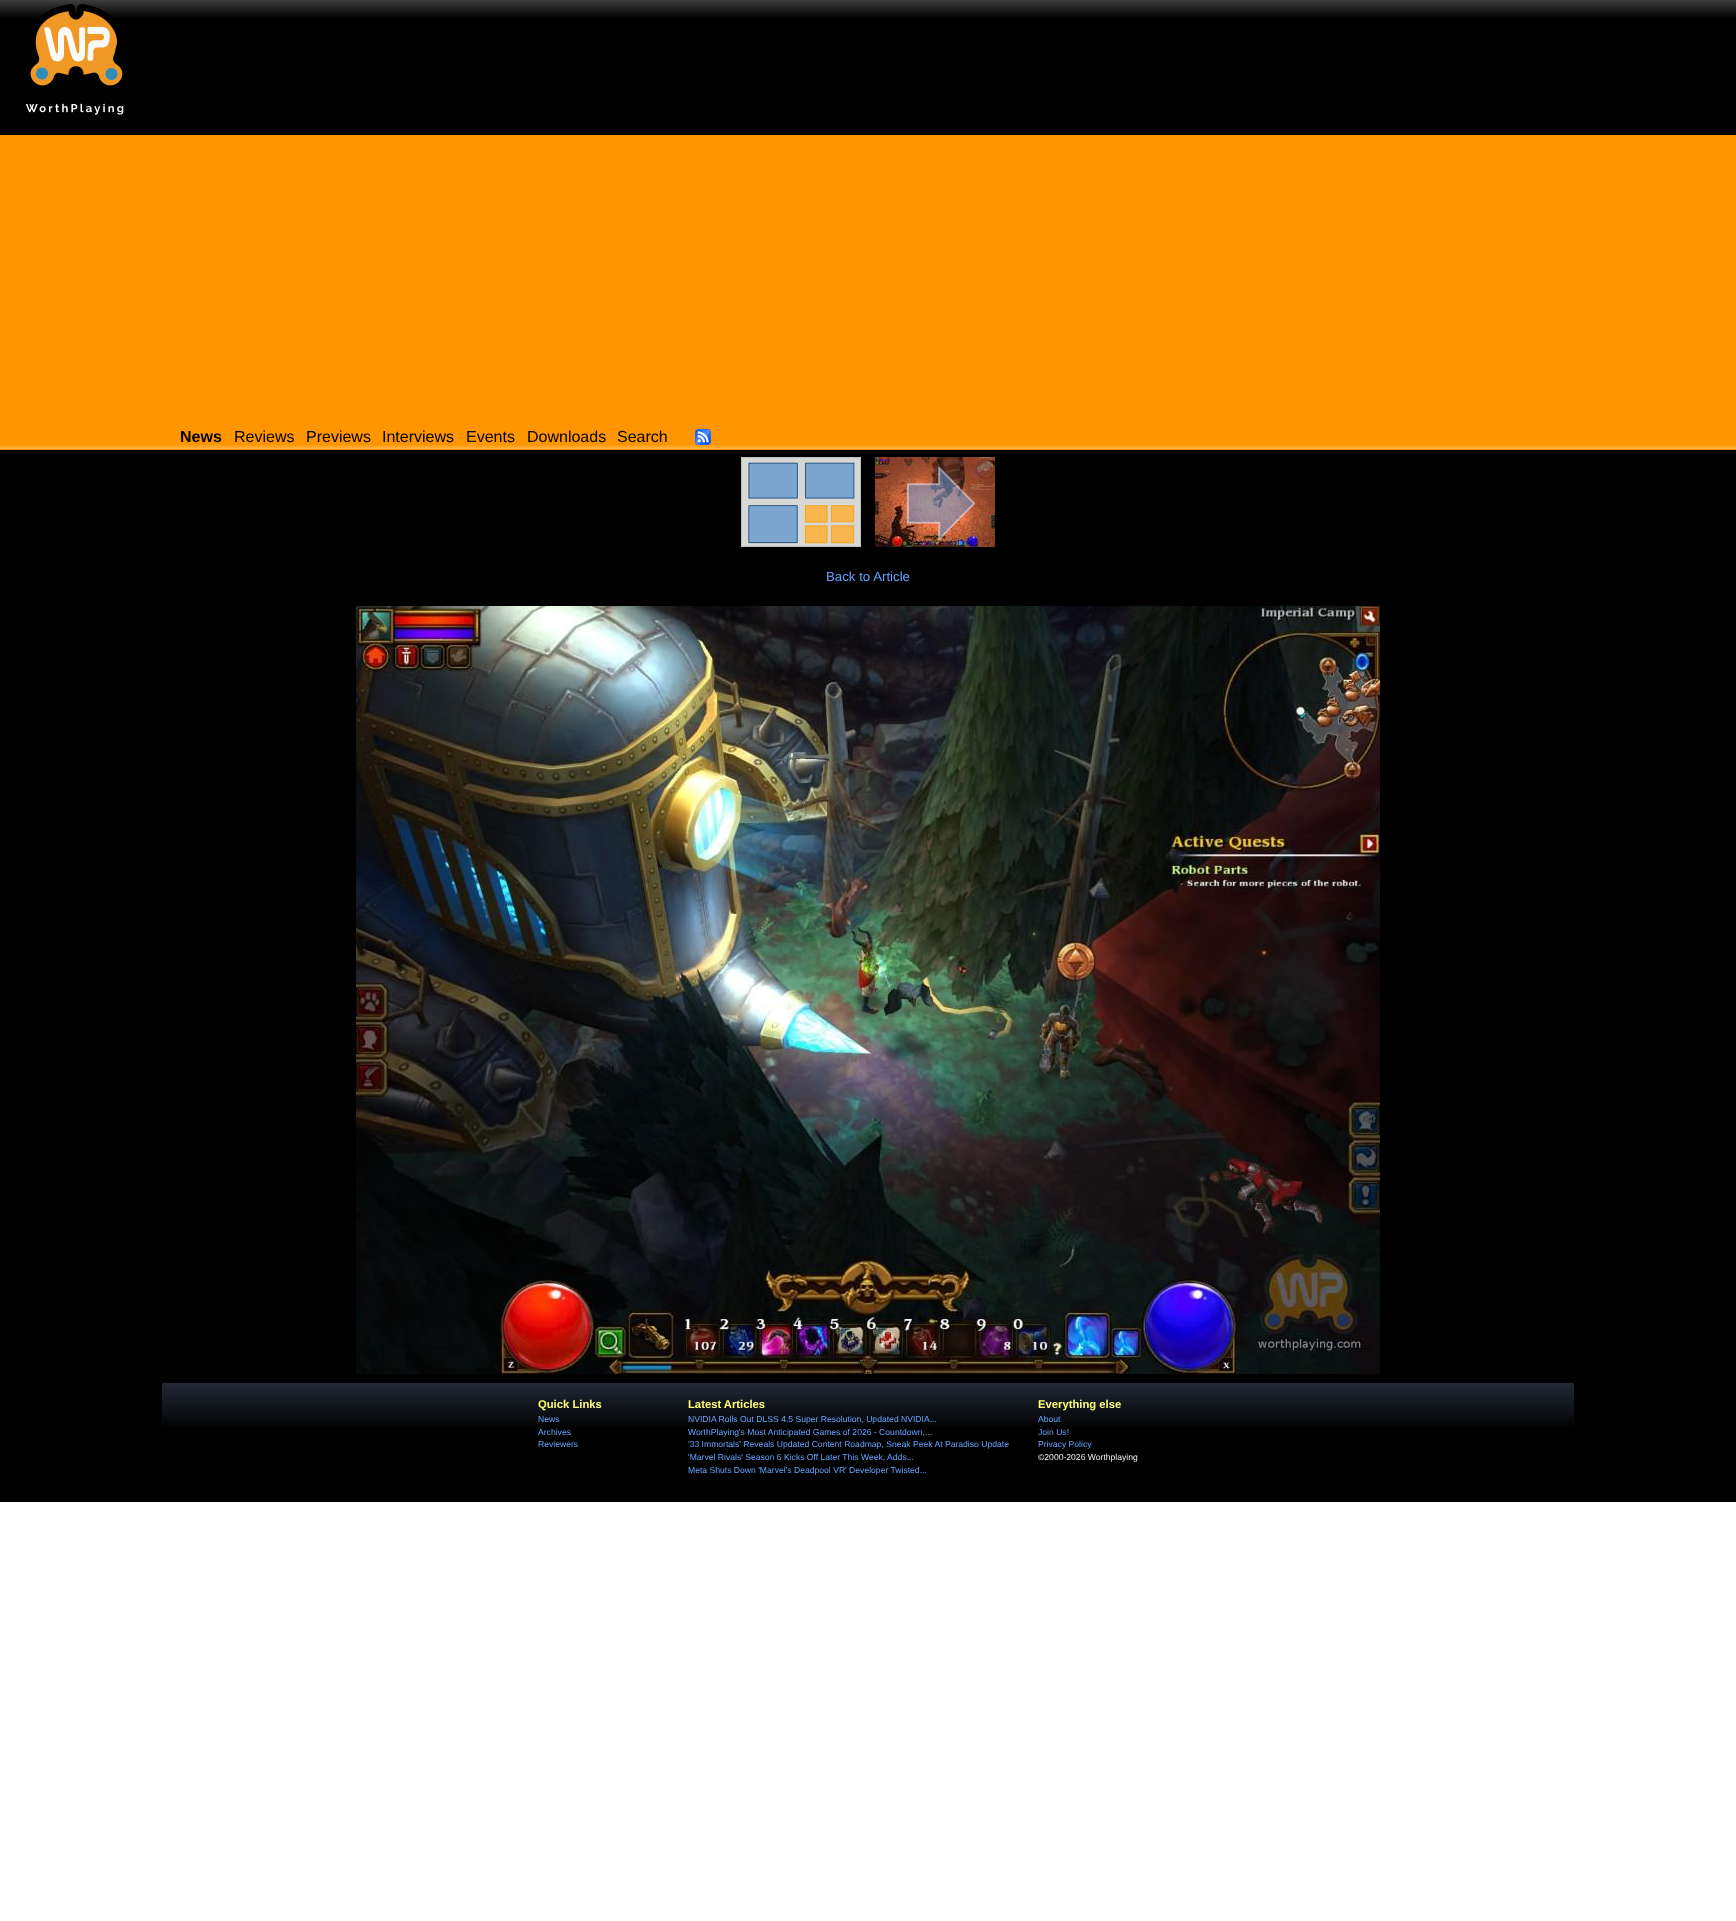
<svg xmlns="http://www.w3.org/2000/svg" width="1736" height="1921">
	<rect width="100%" height="100%" fill="#FFFFFF" />
	<rect x="0" y="17" width="1736" height="118" fill="#000000" />
	<image x="0" y="0" width="1736" height="17" href="assets/img1.png" />
	<image x="25" y="4" width="99" height="111" href="assets/img2.png" />
	<rect x="0" y="135" width="1736" height="315" fill="#FF9600" />
	<image x="0" y="445" width="1736" height="4" href="assets/img3.png" />
	<text x="180" y="442" font-family="Liberation Sans" font-size="16" font-weight="700" fill="#000000">News</text>
	<g font-family="Liberation Sans" font-size="16" fill="#000000">
		<text x="234" y="442">Reviews</text>
		<text x="306" y="442">Previews</text>
		<text x="382" y="442">Interviews</text>
		<text x="466" y="442">Events</text>
		<text x="527" y="442">Downloads</text>
		<text x="617" y="442">Search</text>
	</g>
	<image x="695" y="429" width="16" height="16" href="assets/img4.png" />
	<rect x="0" y="450" width="1736" height="1052" fill="#000000" />
	<image x="741" y="457" width="120" height="90" href="assets/img5.png" />
	<image x="875" y="457" width="120" height="90" href="assets/img6.png" />
	<image x="907" y="467" width="68" height="73" href="assets/img7.png" />
	<text x="826" y="581" font-family="Liberation Sans" font-size="13.25" fill="#66A3FF">Back to Article</text>
	<image x="356" y="606" width="1024" height="768" href="assets/img8.png" />
	<image x="162" y="1383" width="1412" height="44" href="assets/img9.png" />
	<text x="538" y="1408" font-family="Liberation Sans" font-size="11.25" font-weight="700" fill="#FFFF76">Quick Links</text>
	<g font-family="Liberation Sans" font-size="8.6" fill="#66A3FF">
		<text x="538" y="1422">News</text>
		<text x="538" y="1435">Archives</text>
		<text x="538" y="1447">Reviewers</text>
	</g>
	<text x="688" y="1408" font-family="Liberation Sans" font-size="11.25" font-weight="700" fill="#FFFF76">Latest Articles</text>
	<g font-family="Liberation Sans" font-size="8.6" fill="#66A3FF">
		<text x="688" y="1422">NVIDIA Rolls Out DLSS 4.5 Super Resolution, Updated NVIDIA...</text>
		<text x="688" y="1435">WorthPlaying's Most Anticipated Games of 2026 - Countdown,...</text>
		<text x="688" y="1447">'33 Immortals' Reveals Updated Content Roadmap, Sneak Peek At Paradiso Update</text>
		<text x="688" y="1460">'Marvel Rivals' Season 6 Kicks Off Later This Week, Adds...</text>
		<text x="688" y="1473">Meta Shuts Down 'Marvel's Deadpool VR' Developer Twisted...</text>
	</g>
	<text x="1038" y="1408" font-family="Liberation Sans" font-size="11.25" font-weight="700" fill="#FFFF76">Everything else</text>
	<g font-family="Liberation Sans" font-size="8.6" fill="#66A3FF">
		<text x="1038" y="1422">About</text>
		<text x="1038" y="1435">Join Us!</text>
		<text x="1038" y="1447">Privacy Policy</text>
	</g>
	<text x="1038" y="1460" font-family="Liberation Sans" font-size="8.6" fill="#F0F0F0">©2000-2026 Worthplaying</text>
</svg>
